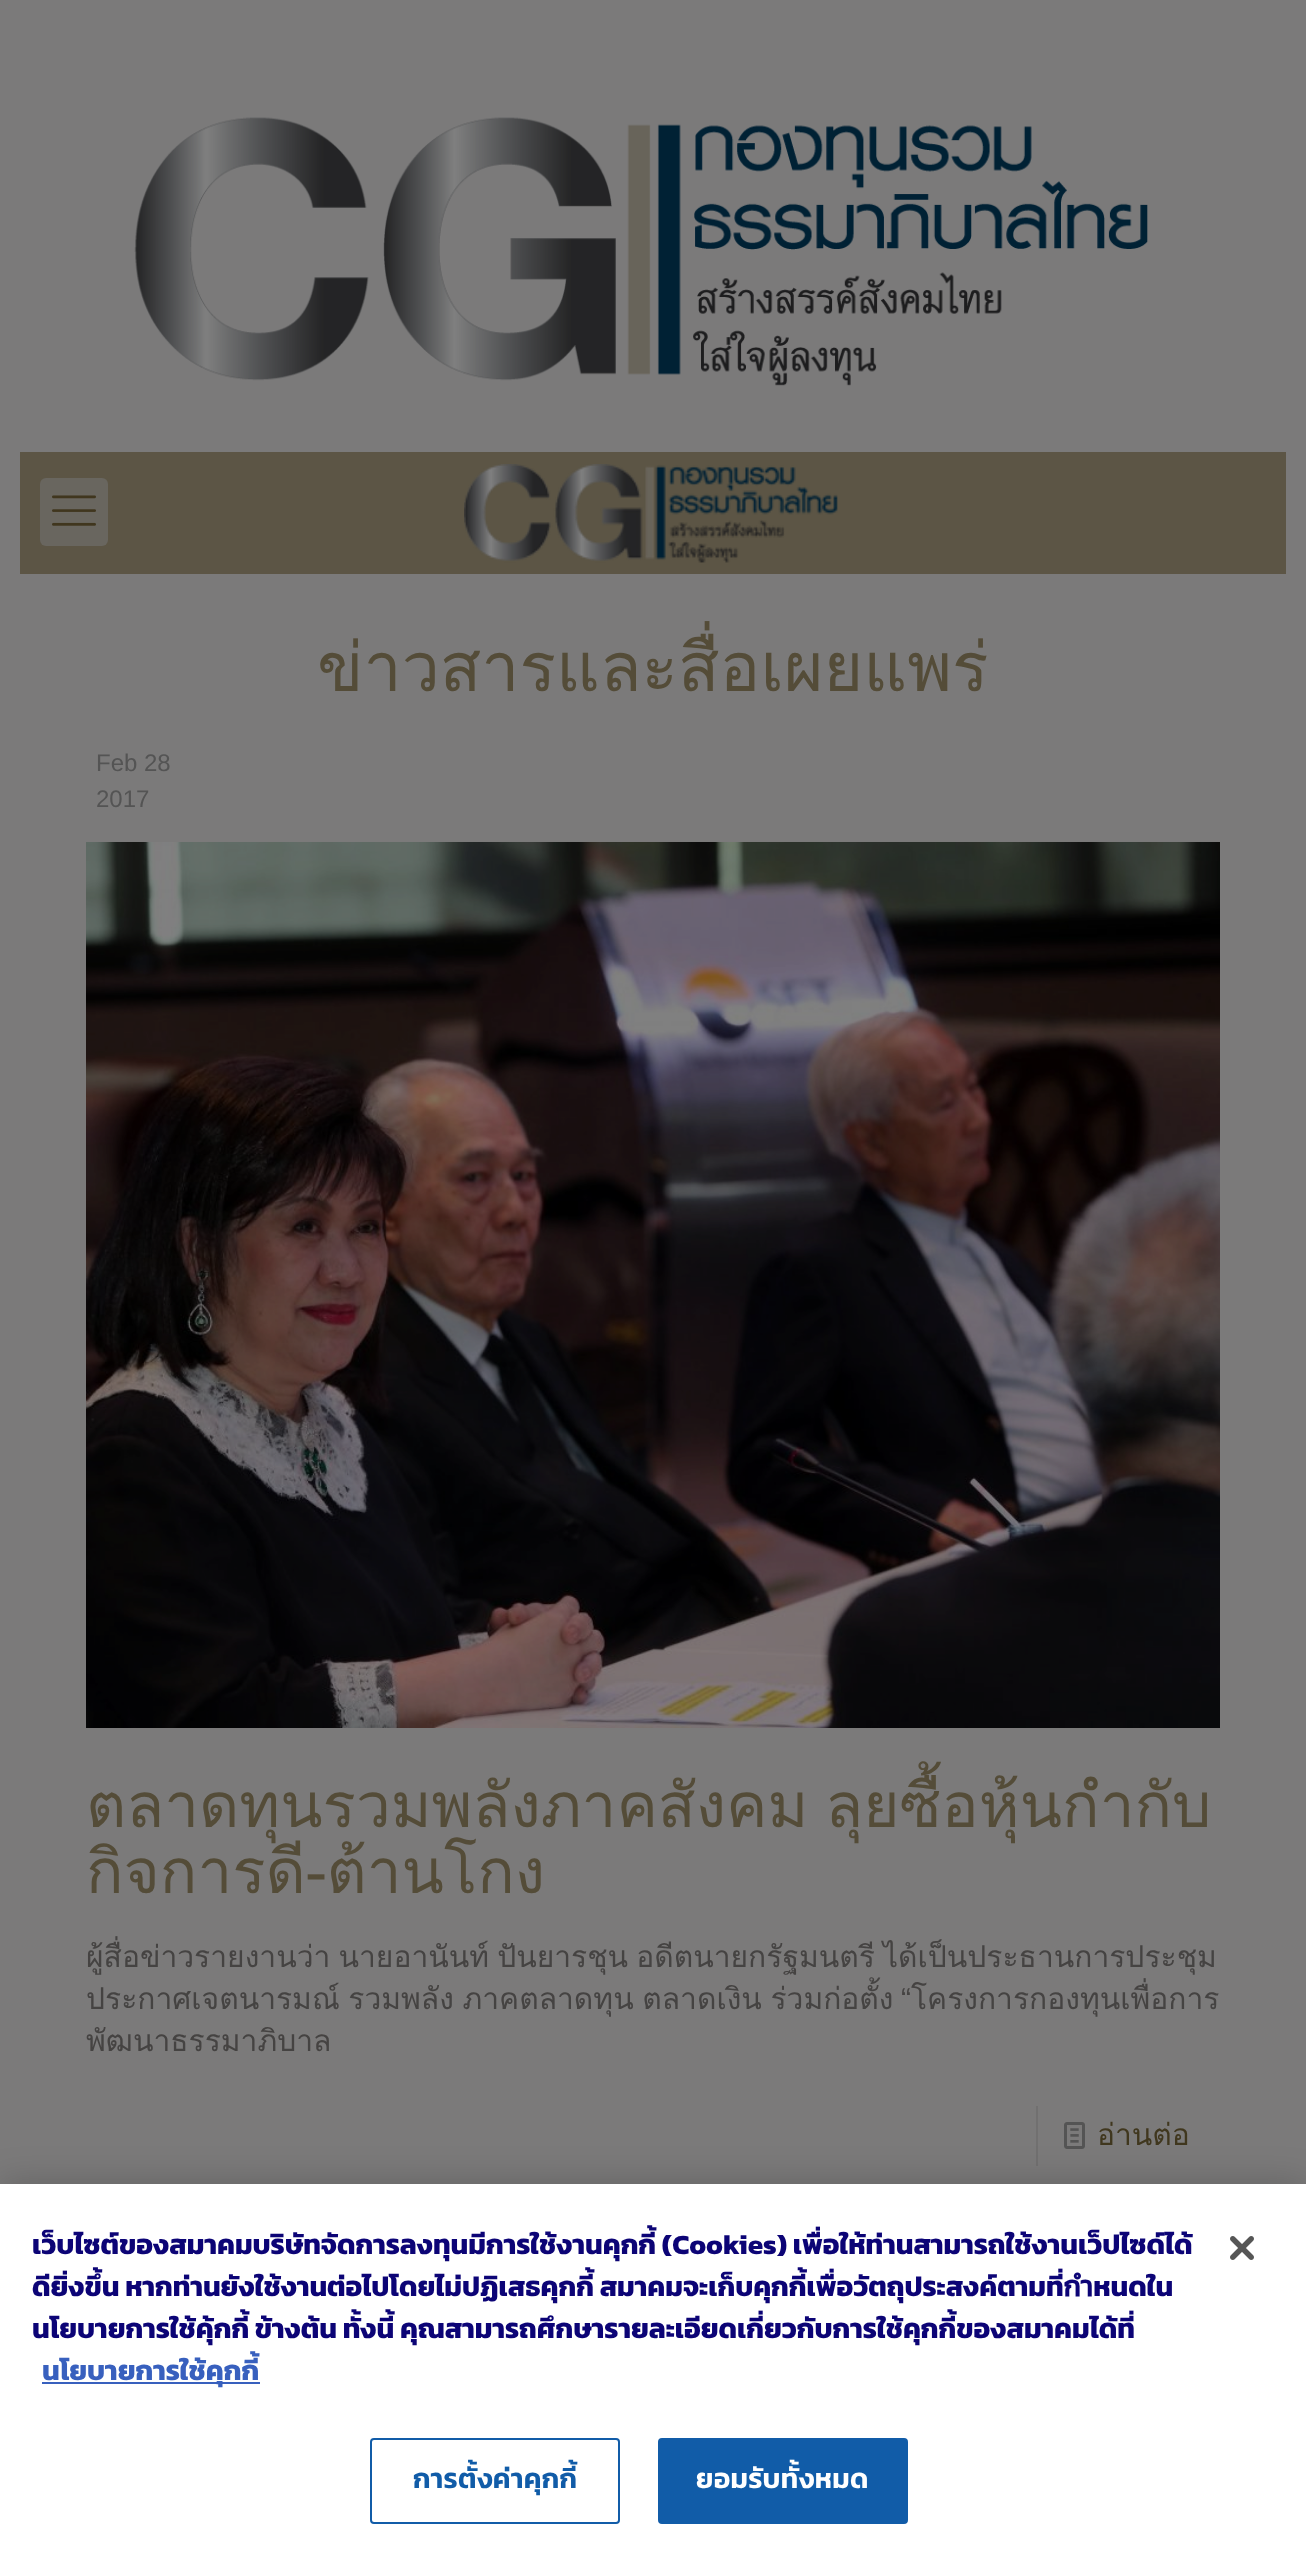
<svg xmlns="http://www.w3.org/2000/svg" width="1306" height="2556">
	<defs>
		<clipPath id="clip1"><rect x="86" y="742" width="1134" height="1518" /></clipPath>
		<clipPath id="clip2"><rect x="32" y="2224" width="1176" height="194" /></clipPath>
	</defs>
	<rect width="100%" height="100%" fill="#7B7A7A" />
	<image x="134" y="117" width="1014" height="269" href="assets/img1.png" />
	<rect x="20" y="452" width="1266" height="122" fill="#5C5545" />
	<rect x="40" y="478" width="68" height="68" rx="6" fill="#69665F" />
	<image x="52" y="495" width="44" height="31" href="assets/img2.png" />
	<image x="464" y="464" width="374" height="99" href="assets/img3.png" />
	<text x="317" y="691" font-family="Loma" font-size="68" fill="#544C38">ข่าวสารและสื่อเผยแพร่</text>
	<g font-family="Liberation Sans" font-size="24" fill="#545454">
		<text x="96" y="771">Feb 28</text>
		<text x="96" y="807">2017</text>
	</g>
	<image x="86" y="842" width="1134" height="886" href="assets/img4.png" />
	<text x="86" y="1827" word-spacing="-4" font-family="Loma" font-size="62" fill="#544C38">ตลาดทุนรวมพลังภาคสังคม ลุยซื้อหุ้นกำกับ</text>
	<g clip-path="url(#clip1)">
		<text x="86" y="1893" font-family="Loma" font-size="62" fill="#544C38">กิจการดี-ต้านโกง</text>
		<text x="86" y="1967" word-spacing="-2" font-family="Loma" font-size="30" fill="#454342">ผู้สื่อข่าวรายงานว่า นายอานันท์ ปันยารชุน อดีตนายกรัฐมนตรี ได้เป็นประธานการประชุม</text>
	</g>
	<text x="86" y="2009" word-spacing="-1.5" font-family="Loma" font-size="30" fill="#454342">ประกาศเจตนารมณ์ รวมพลัง ภาคตลาดทุน ตลาดเงิน ร่วมก่อตั้ง</text>
	<text x="901" y="2009" font-family="Liberation Sans" font-size="30" fill="#454342">“</text>
	<text x="911" y="2009" font-family="Loma" font-size="30" fill="#454342">โครงการกองทุนเพื่อการ</text>
	<g clip-path="url(#clip1)">
		<text x="86" y="2051" font-family="Loma" font-size="30" fill="#454342">พัฒนาธรรมาภิบาล</text>
	</g>
	<rect x="1036" y="2106" width="2" height="60" fill="#717070" />
	<image x="1064" y="2122" width="21" height="27" href="assets/img5.png" />
	<text x="1097" y="2145" font-family="Loma" font-size="30" fill="#40371E">อ่านต่อ</text>
	<rect x="0" y="2184" width="1306" height="372" fill="#000000" fill-opacity="0.2" filter="blur(18px)" />
	<rect x="0" y="2184" width="1306" height="372" fill="#FFFFFF" />
	<g clip-path="url(#clip2)">
		<g font-family="Kanit" font-size="28" font-weight="700" fill="#0C0476">
			<text x="32" y="2254">เว็บไซต์ของสมาคมบริษัทจัดการลงทุนมีการใช้งานคุกกี้ (Cookies) เพื่อให้ท่านสามารถใช้งานเว็ปไซด์ได้</text>
			<text x="32" y="2296">ดียิ่งขึ้น หากท่านยังใช้งานต่อไปโดยไม่ปฏิเสธคุกกี้ สมาคมจะเก็บคุกกี้เพื่อวัตถุประสงค์ตามที่กำหนดใน</text>
		</g>
	</g>
	<text x="32" y="2338" font-family="Kanit" font-size="28" font-weight="700" fill="#0C0476">นโยบายการใช้คุ้กกี้ ข้างต้น ทั้งนี้ คุณสามารถศึกษารายละเอียดเกี่ยวกับการใช้คุกกี้ของสมาคมได้ที่</text>
	<rect x="42" y="2382" width="218" height="2" fill="#3860BE" />
	<text x="42" y="2380" font-family="Kanit" font-size="28" font-weight="700" fill="#3860BE">นโยบายการใช้คุกกี้</text>
	<rect x="371" y="2439" width="248" height="84" rx="3" fill="none" stroke="#115CA8" stroke-width="2" />
	<text x="413" y="2488" font-family="Kanit" font-size="28" font-weight="600" letter-spacing="0.25" fill="#115CA8">การตั้งค่าคุกกี้</text>
	<rect x="659" y="2439" width="248" height="84" rx="3" fill="#115CA8" stroke="#115CA8" stroke-width="2" />
	<text x="696" y="2488" font-family="Kanit" font-size="28" font-weight="600" letter-spacing="0.25" fill="#FFFFFF">ยอมรับทั้งหมด</text>
	<image x="1230" y="2236" width="24" height="24" href="assets/img6.png" />
</svg>
